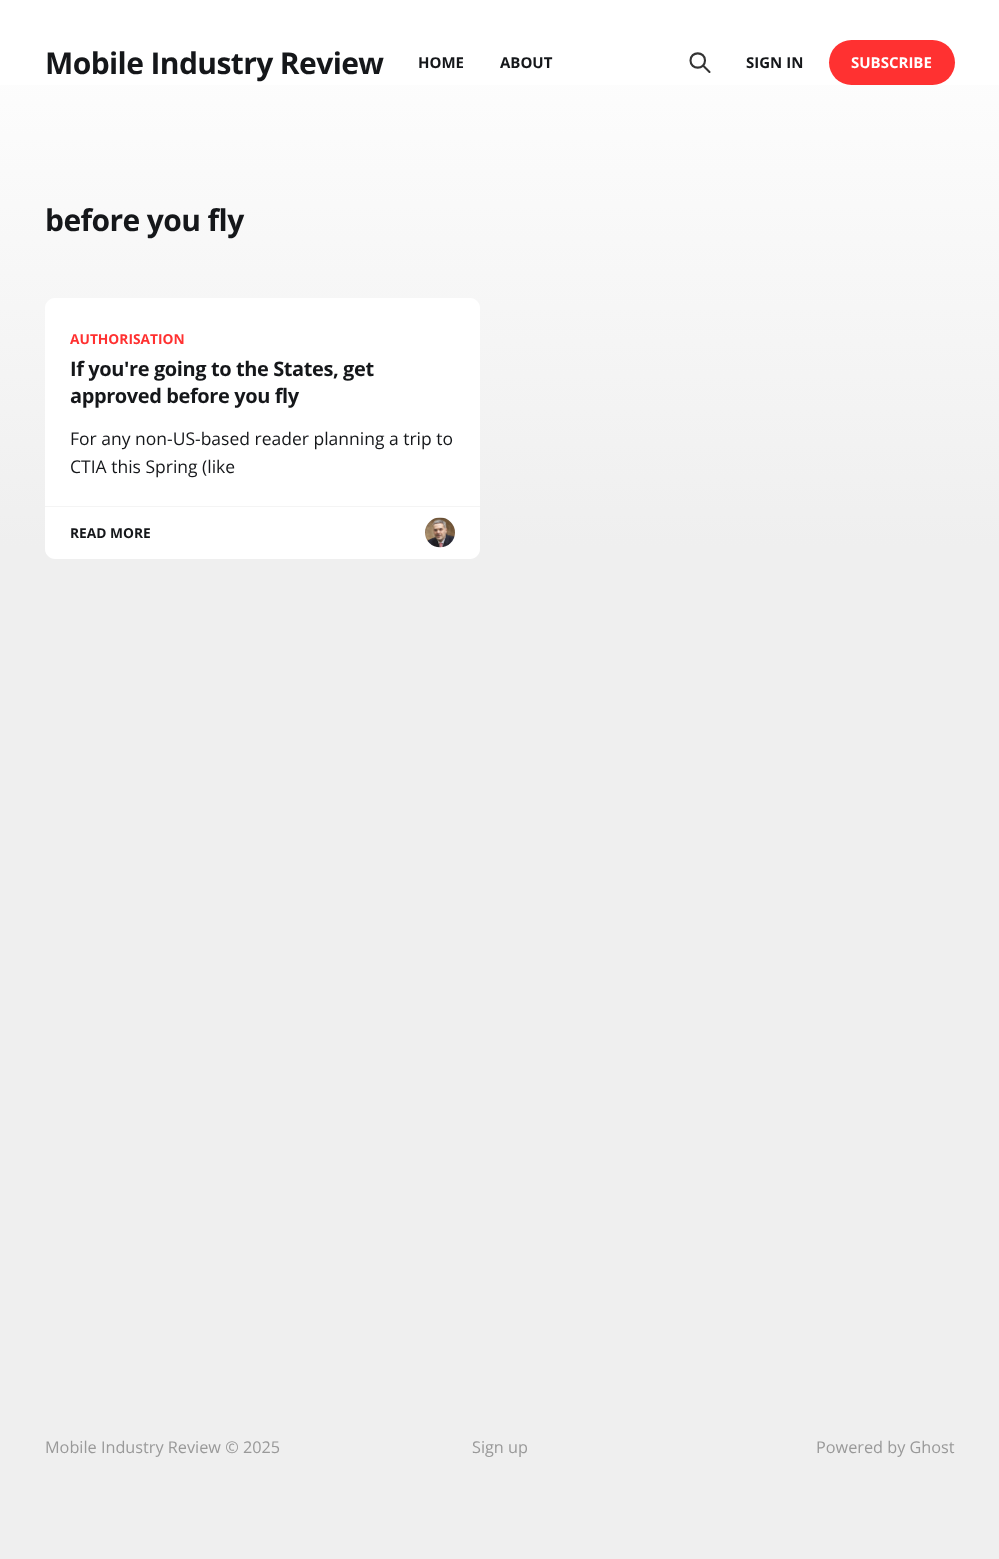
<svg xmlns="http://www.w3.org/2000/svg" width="999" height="1559">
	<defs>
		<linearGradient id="g1" gradientUnits="userSpaceOnUse" x1="500" y1="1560" x2="500" y2="0"><stop offset="0.65" stop-color="#EFEFEF" /><stop offset="1" stop-color="#FFFFFF" /></linearGradient>
	</defs>
	<rect width="100%" height="100%" fill="#FFFFFF" />
	<rect x="0" y="85" width="999" height="1474" fill="url(#g1)" />
	<text x="45" y="74" font-family="Open Sans" font-size="30" font-weight="700" letter-spacing="-0.6" fill="#15171A">Mobile Industry Review</text>
	<g font-family="Open Sans" font-size="15" font-weight="700" fill="#15171A">
		<text x="418" y="68">HOME</text>
		<text x="500" y="68">ABOUT</text>
	</g>
	<path d="M709.5 72L703 65.5M705 60.5C705 70 690.5 70 690.5 60.5C690.5 51 705 51 705 60.5Z" fill="none" stroke="#333333" stroke-width="2.1" stroke-linecap="round" stroke-linejoin="round" />
	<text x="746" y="68" font-family="Open Sans" font-size="15" font-weight="700" fill="#15171A">SIGN IN</text>
	<rect x="829" y="40" width="126" height="45" rx="22.5" fill="#FF3131" />
	<text x="851" y="68" font-family="Open Sans" font-size="15" font-weight="700" fill="#FFFFFF">SUBSCRIBE</text>
	<text x="45" y="231" font-family="Open Sans" font-size="30" font-weight="700" letter-spacing="-0.6" fill="#15171A">before you fly</text>
	<path d="M55 298H470C475.5 298 480 302.5 480 308V506H45V308C45 302.5 49.5 298 55 298Z" fill="#FFFFFF" />
	<text x="70" y="344" font-family="Open Sans" font-size="13.75" font-weight="700" fill="#FF3131">AUTHORISATION</text>
	<g font-family="Open Sans" font-size="20" font-weight="700" letter-spacing="-0.4" fill="#15171A">
		<text x="70" y="376">If you're going to the States, get</text>
		<text x="70" y="403">approved before you fly</text>
	</g>
	<g font-family="Open Sans" font-size="17.5" fill="#15171A">
		<text x="70" y="445">For any non-US-based reader planning a trip to</text>
		<text x="70" y="473">CTIA this Spring (like</text>
	</g>
	<path d="M45 506H480V549C480 554.5 475.5 559 470 559H55C49.5 559 45 554.5 45 549Z" fill="#FFFFFF" />
	<rect x="45" y="506" width="435" height="1" fill="#F4F4F4" />
	<text x="70" y="538" font-family="Open Sans" font-size="13.75" font-weight="700" fill="#15171A">READ MORE</text>
	<image x="425" y="517" width="30" height="31" href="assets/img1.png" />
	<g font-family="Open Sans" font-size="16.25" fill="#999999">
		<text x="45" y="1453">Mobile Industry Review © 2025</text>
		<text x="472" y="1453">Sign up</text>
		<text x="816" y="1453">Powered by Ghost</text>
	</g>
</svg>
